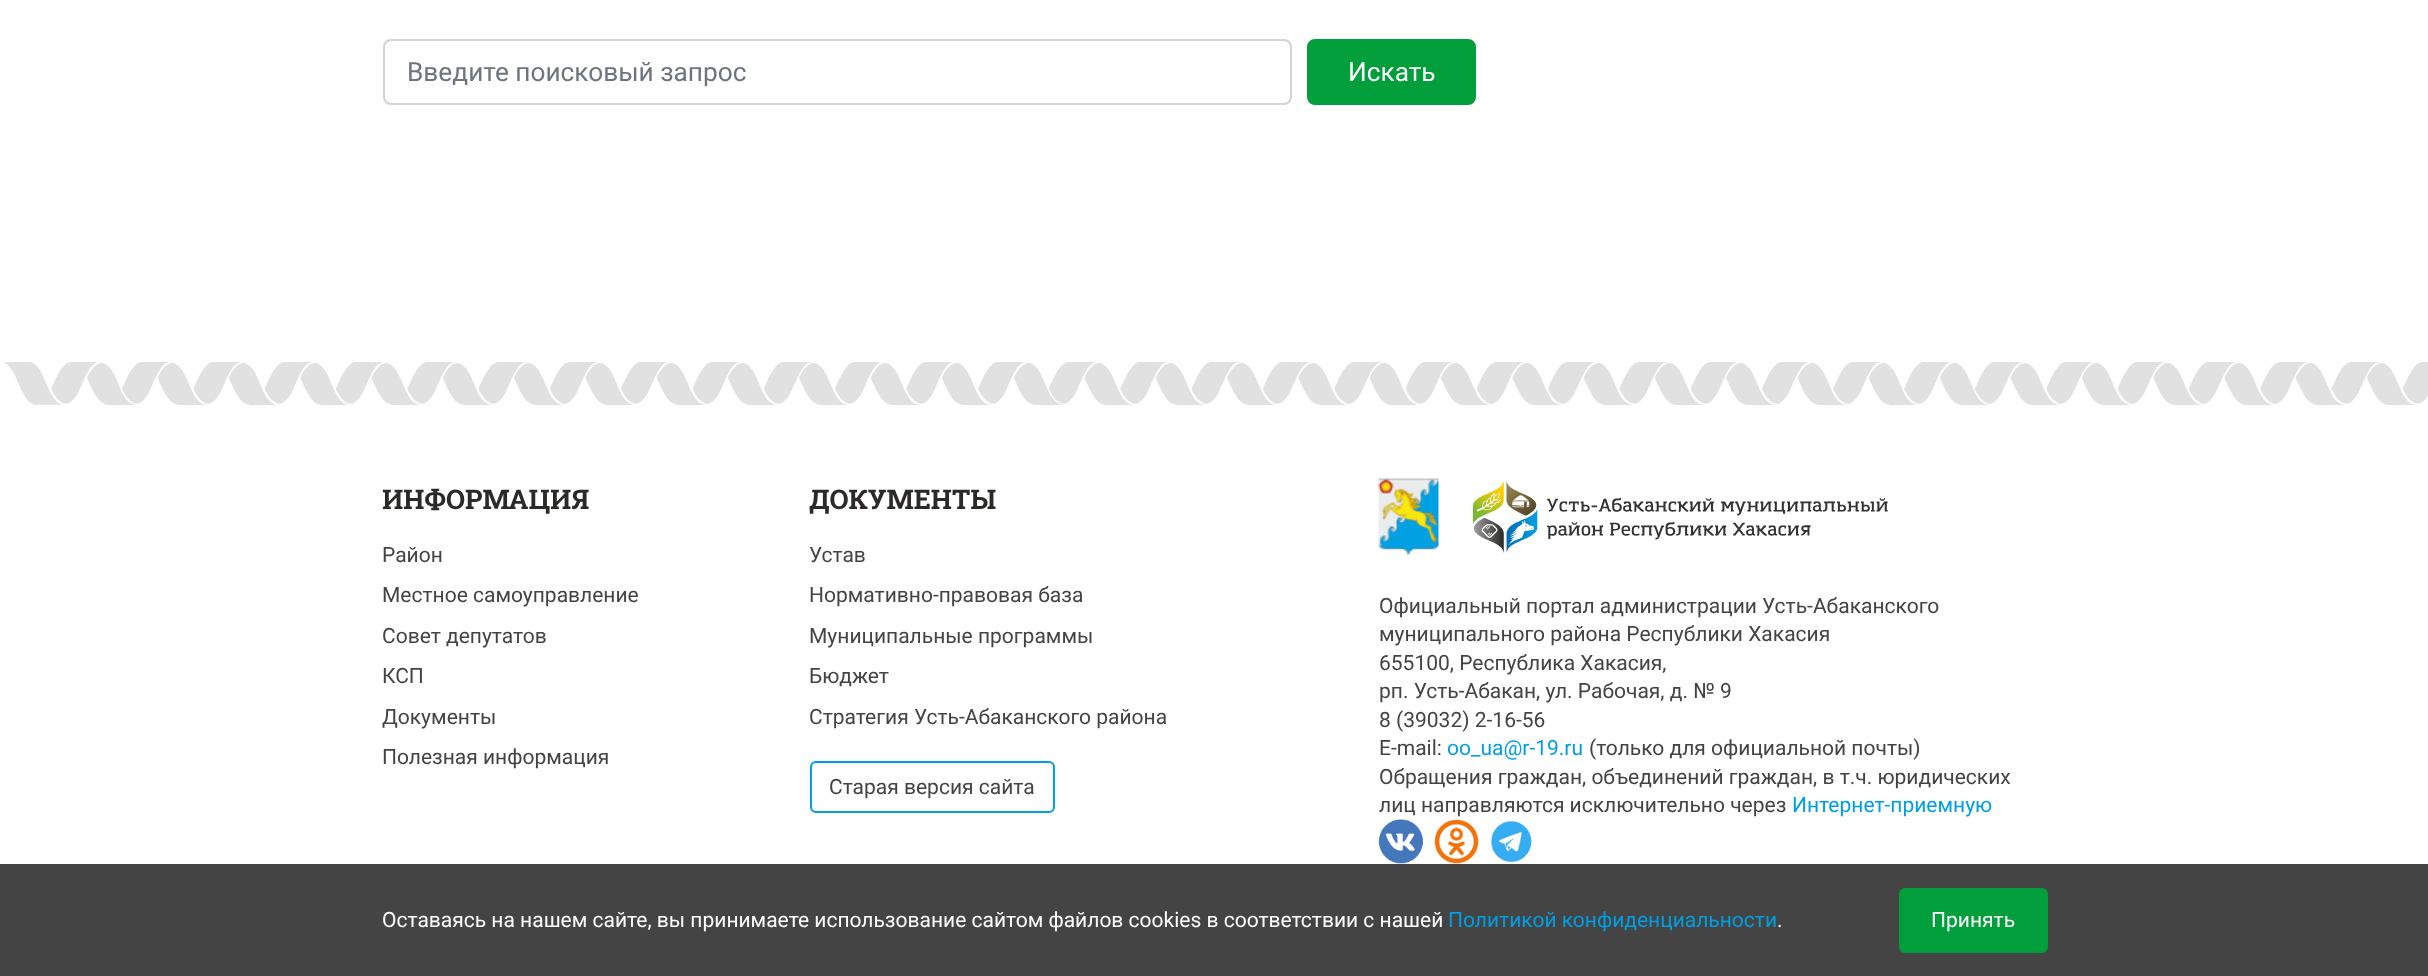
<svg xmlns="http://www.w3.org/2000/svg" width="2428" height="976">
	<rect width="100%" height="100%" fill="#FFFFFF" />
	<rect x="384" y="40" width="907" height="64" rx="7" fill="none" stroke="#CED4DA" stroke-width="2" />
	<text x="407" y="81" font-family="Roboto" font-size="26.25" fill="#6C757D">Введите поисковый запрос</text>
	<rect x="1308" y="40" width="167" height="64" rx="7" fill="#009F3B" stroke="#009F3B" stroke-width="2" />
	<text x="1348" y="81" font-family="Roboto" font-size="26.25" fill="#FFFFFF">Искать</text>
	<image x="3" y="362" width="2425" height="43" href="assets/img1.png" />
	<text x="382" y="509" font-family="Roboto Slab" font-size="27" font-weight="700" fill="#2B2A29">ИНФОРМАЦИЯ</text>
	<g font-family="Roboto" font-size="21" fill="#444444">
		<text x="382" y="562">Район</text>
		<text x="382" y="602">Местное самоуправление</text>
		<text x="382" y="643">Совет депутатов</text>
		<text x="382" y="683">КСП</text>
		<text x="382" y="724">Документы</text>
		<text x="382" y="764">Полезная информация</text>
	</g>
	<text x="809" y="509" font-family="Roboto Slab" font-size="27" font-weight="700" fill="#2B2A29">ДОКУМЕНТЫ</text>
	<g font-family="Roboto" font-size="21" fill="#444444">
		<text x="809" y="562">Устав</text>
		<text x="809" y="602">Нормативно-правовая база</text>
		<text x="809" y="643">Муниципальные программы</text>
		<text x="809" y="683">Бюджет</text>
		<text x="809" y="724">Стратегия Усть-Абаканского района</text>
	</g>
	<rect x="811" y="762" width="243" height="50" rx="5" fill="none" stroke="#009FE3" stroke-width="2" />
	<text x="829" y="794" font-family="Roboto" font-size="21" fill="#444444">Старая версия сайта</text>
	<image x="1378" y="478" width="61" height="77" href="assets/img2.png" />
	<image x="1473" y="480" width="415" height="73" href="assets/img3.png" />
	<g font-family="Roboto" font-size="21" fill="#444444">
		<text x="1379" y="613">Официальный портал администрации Усть-Абаканского</text>
		<text x="1379" y="641">муниципального района Республики Хакасия</text>
		<text x="1379" y="670">655100, Республика Хакасия,</text>
		<text x="1379" y="698">рп. Усть-Абакан, ул. Рабочая, д. № 9</text>
		<text x="1379" y="727">8 (39032) 2-16-56</text>
		<text x="1379" y="755">Е-mail:</text>
	</g>
	<text x="1447" y="755" font-family="Roboto" font-size="21" fill="#009FE3">oo_ua@r-19.ru</text>
	<g font-family="Roboto" font-size="21" fill="#444444">
		<text x="1589" y="755">(только для официальной почты)</text>
		<text x="1379" y="784">Обращения граждан, объединений граждан, в т.ч. юридических</text>
		<text x="1379" y="812">лиц направляются исключительно через</text>
	</g>
	<text x="1792" y="812" font-family="Roboto" font-size="21" fill="#009FE3">Интернет-приемную</text>
	<image x="1378" y="819" width="46" height="45" href="assets/img4.png" />
	<image x="1434" y="819" width="45" height="45" href="assets/img5.png" />
	<image x="1490" y="820" width="42" height="43" href="assets/img6.png" />
	<rect x="0" y="864" width="2428" height="112" fill="#444444" />
	<text x="382" y="927" font-family="Roboto" font-size="21" fill="#FFFFFF">Оставаясь на нашем сайте, вы принимаете использование сайтом файлов cookies в соответствии с нашей</text>
	<text x="1448" y="927" font-family="Roboto" font-size="21" fill="#009FE3">Политикой конфиденциальности</text>
	<text x="1777" y="927" font-family="Roboto" font-size="21" fill="#FFFFFF">.</text>
	<rect x="1900" y="889" width="147" height="63" rx="5" fill="#009F3B" stroke="#009F3B" stroke-width="2" />
	<text x="1931" y="927" font-family="Roboto" font-size="21" fill="#FFFFFF">Принять</text>
</svg>
